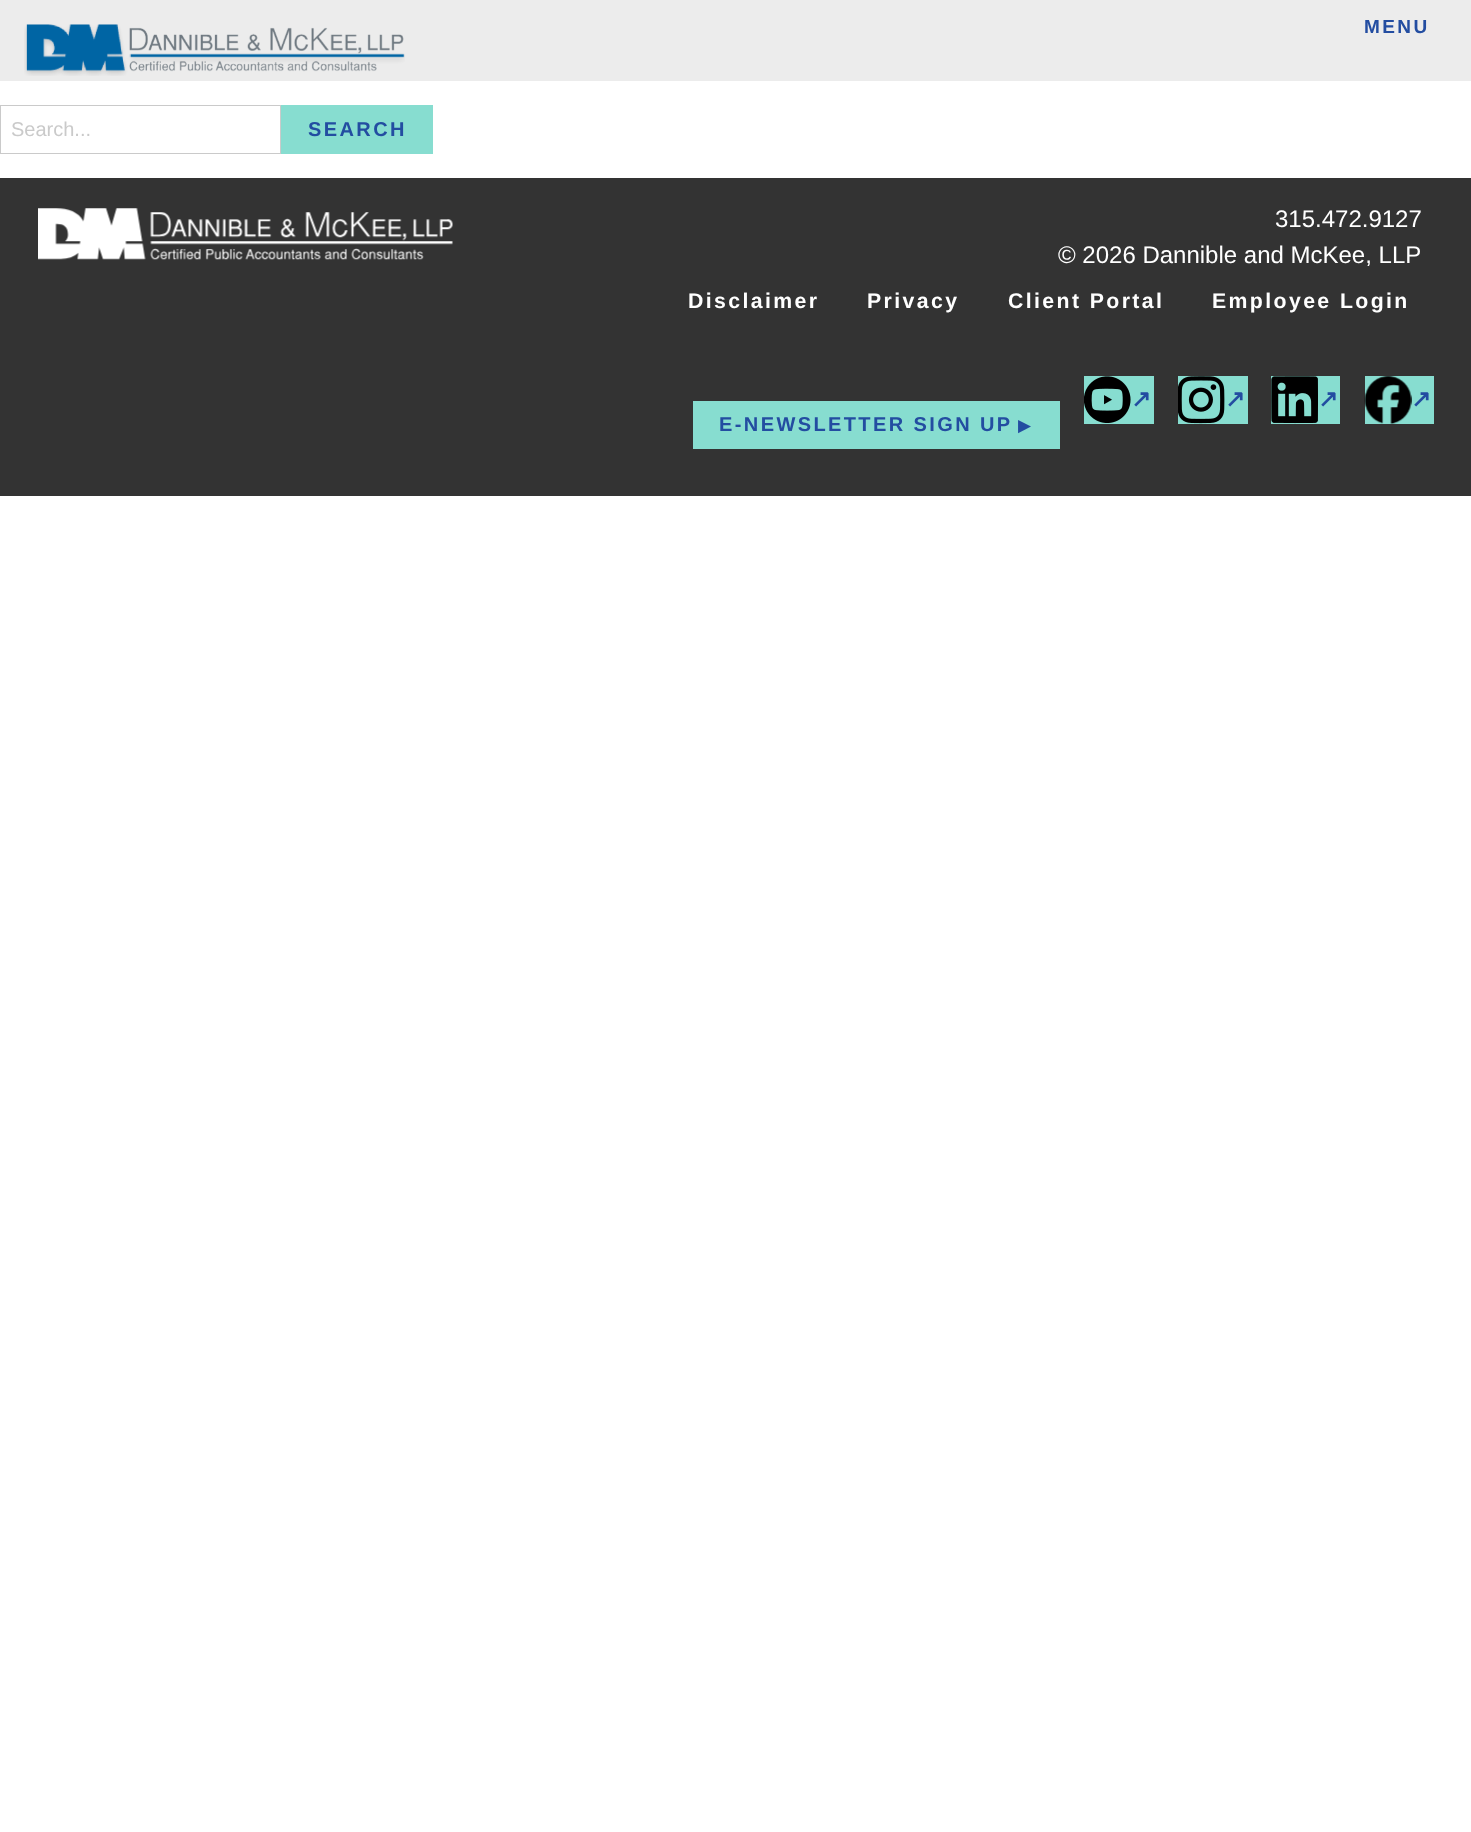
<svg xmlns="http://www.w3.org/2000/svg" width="1471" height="1832">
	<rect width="100%" height="100%" fill="#FFFFFF" />
	<rect x="0" y="0" width="1471" height="81" fill="#ECECEC" />
	<image x="24" y="24" width="381" height="52" href="assets/img1.png" />
	<text x="1364" y="33" font-family="Liberation Sans" font-size="19" font-weight="700" letter-spacing="2.4" fill="#234DA1">MENU</text>
	<rect x="0.5" y="105.5" width="280" height="48" fill="none" stroke="#CACACA" />
	<text x="11" y="136" font-family="Liberation Sans" font-size="20" fill="#CACACA">Search...</text>
	<rect x="281" y="105" width="152" height="49" fill="#87DDD0" />
	<text x="308" y="136" font-family="Liberation Sans" font-size="20" font-weight="700" letter-spacing="2.4" fill="#234DA1">SEARCH</text>
	<rect x="0" y="178" width="1471" height="318" fill="#333333" />
	<image x="38" y="208" width="415" height="52" href="assets/img2.png" />
	<g font-family="Liberation Sans" font-size="24" fill="#FFFFFF">
		<text x="1275" y="227">315.472.9127</text>
		<text x="1058" y="263">© 2026 Dannible and McKee, LLP</text>
	</g>
	<g font-family="Liberation Sans" font-size="21.25" font-weight="700" letter-spacing="2.4" fill="#FFFFFF">
		<text x="688" y="308">Disclaimer</text>
		<text x="867" y="308">Privacy</text>
		<text x="1008" y="308">Client Portal</text>
		<text x="1212" y="308">Employee Login</text>
	</g>
	<rect x="1084" y="376" width="70" height="48" fill="#87DDD0" />
	<image x="1084" y="376" width="47" height="47" href="assets/img3.png" />
	<text x="1131" y="407" font-family="DejaVu Sans" font-size="24" font-weight="700" letter-spacing="2.4" fill="#234DA1">↗</text>
	<rect x="1178" y="376" width="70" height="48" fill="#87DDD0" />
	<image x="1178" y="376" width="47" height="48" href="assets/img4.png" />
	<text x="1225" y="407" font-family="DejaVu Sans" font-size="24" font-weight="700" letter-spacing="2.4" fill="#234DA1">↗</text>
	<rect x="1271" y="376" width="69" height="48" fill="#87DDD0" />
	<image x="1271" y="376" width="47" height="48" href="assets/img5.png" />
	<text x="1318" y="407" font-family="DejaVu Sans" font-size="24" font-weight="700" letter-spacing="2.4" fill="#234DA1">↗</text>
	<rect x="1365" y="376" width="69" height="48" fill="#87DDD0" />
	<image x="1364" y="376" width="48" height="48" href="assets/img6.png" />
	<text x="1411" y="407" font-family="DejaVu Sans" font-size="24" font-weight="700" letter-spacing="2.4" fill="#234DA1">↗</text>
	<rect x="693" y="401" width="367" height="48" fill="#87DDD0" />
	<text x="719" y="431" font-family="Liberation Sans" font-size="20" font-weight="700" letter-spacing="2.4" fill="#234DA1">E-NEWSLETTER SIGN UP</text>
	<text x="1018" y="431" font-family="DejaVu Sans" font-size="16" font-weight="700" letter-spacing="2.4" fill="#234DA1">▶︎</text>
</svg>
